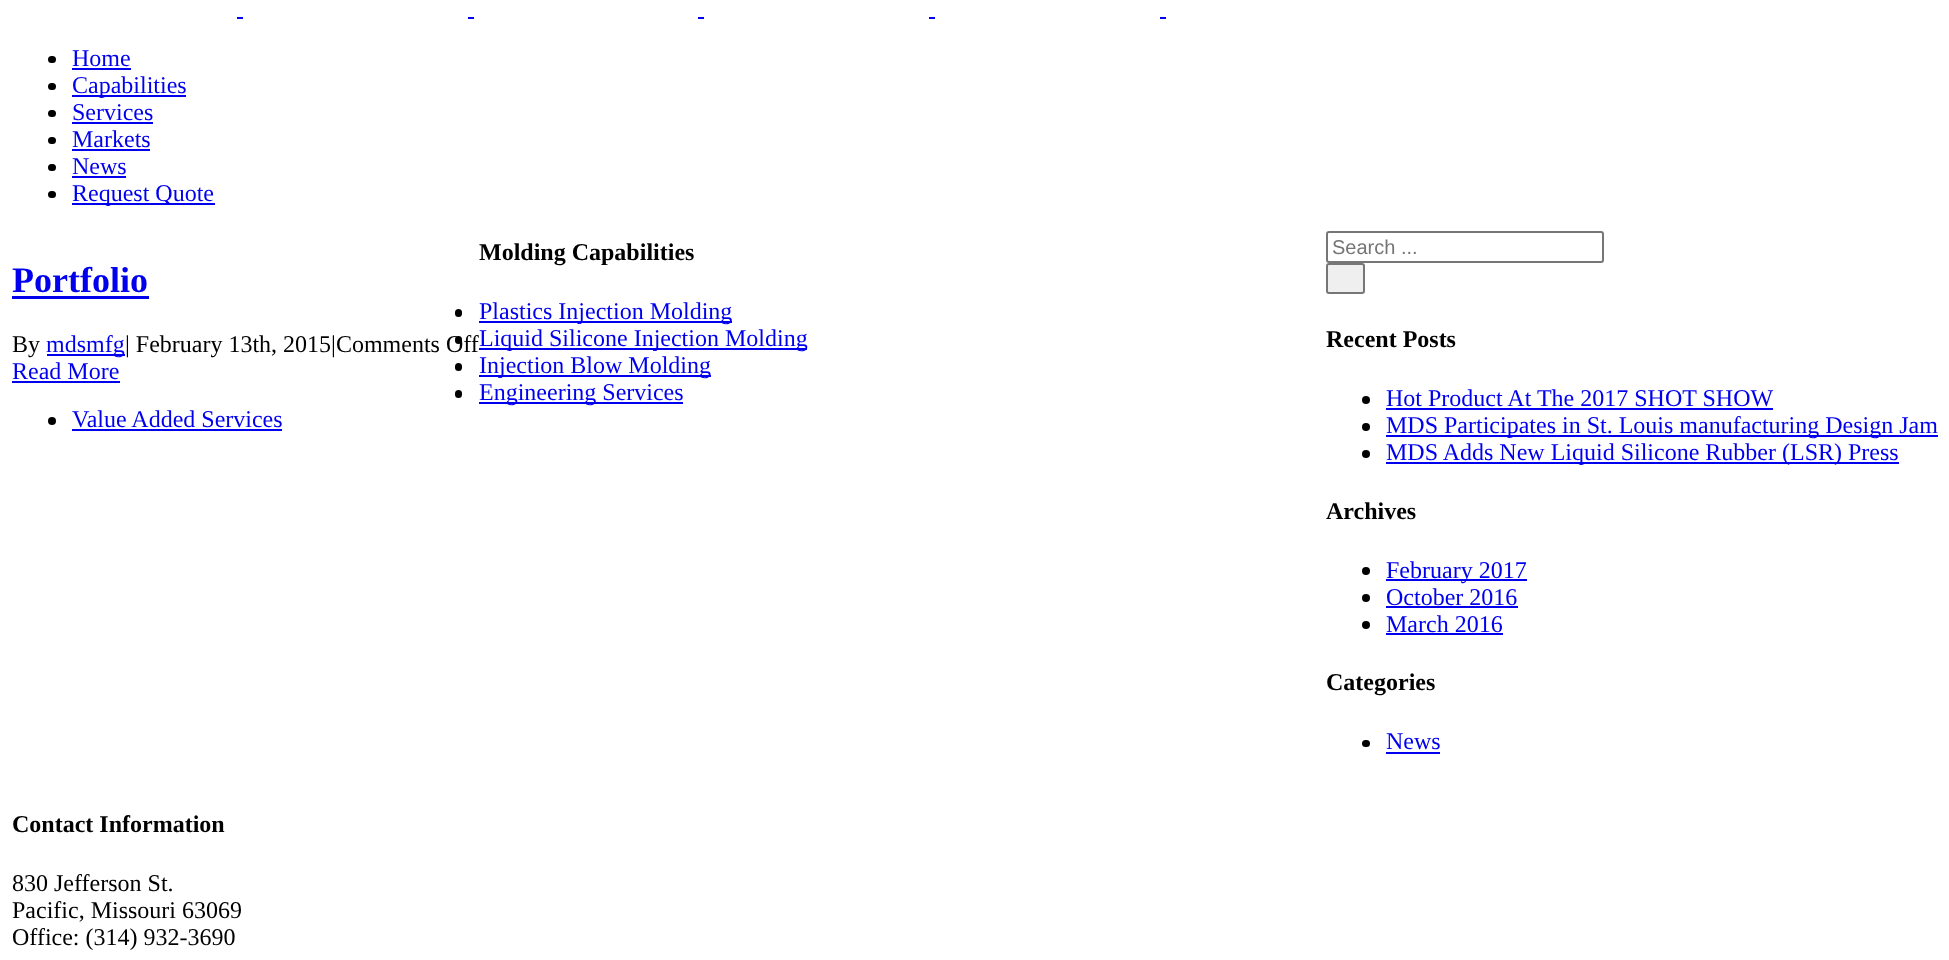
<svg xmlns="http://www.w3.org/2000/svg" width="1949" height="960">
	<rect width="100%" height="100%" fill="#FFFFFF" />
	<rect x="237" y="17" width="6" height="2" fill="#0000EE" />
	<rect x="468" y="17" width="6" height="2" fill="#0000EE" />
	<rect x="698" y="17" width="6" height="2" fill="#0000EE" />
	<rect x="929" y="17" width="6" height="2" fill="#0000EE" />
	<rect x="1160" y="17" width="6" height="2" fill="#0000EE" />
	<rect x="48" y="56" width="8" height="7" rx="3.5" fill="#000000" />
	<text x="72" y="66" font-family="Liberation Serif" font-size="24" fill="#0000EE">Home</text>
	<rect x="72" y="68" width="59" height="2" fill="#0000EE" />
	<rect x="48" y="83" width="8" height="7" rx="3.5" fill="#000000" />
	<rect x="72" y="95" width="114" height="2" fill="#0000EE" />
	<text x="72" y="93" font-family="Liberation Serif" font-size="24" fill="#0000EE">Capabilities</text>
	<rect x="48" y="110" width="8" height="7" rx="3.5" fill="#000000" />
	<text x="72" y="120" font-family="Liberation Serif" font-size="24" fill="#0000EE">Services</text>
	<rect x="72" y="122" width="81" height="2" fill="#0000EE" />
	<rect x="48" y="137" width="8" height="7" rx="3.5" fill="#000000" />
	<text x="72" y="147" font-family="Liberation Serif" font-size="24" fill="#0000EE">Markets</text>
	<rect x="72" y="149" width="78" height="2" fill="#0000EE" />
	<rect x="48" y="164" width="8" height="7" rx="3.5" fill="#000000" />
	<text x="72" y="174" font-family="Liberation Serif" font-size="24" fill="#0000EE">News</text>
	<rect x="72" y="176" width="54" height="2" fill="#0000EE" />
	<rect x="48" y="191" width="8" height="7" rx="3.5" fill="#000000" />
	<rect x="72" y="203" width="143" height="2" fill="#0000EE" />
	<text x="72" y="201" font-family="Liberation Serif" font-size="24" fill="#0000EE">Request Quote</text>
	<text x="12" y="292" font-family="Liberation Serif" font-size="36" font-weight="700" fill="#0000EE">Portfolio</text>
	<rect x="12" y="296" width="137" height="3" fill="#0000EE" />
	<text x="12" y="352" font-family="Liberation Serif" font-size="24" fill="#000000">By</text>
	<rect x="47" y="354" width="78" height="2" fill="#0000EE" />
	<text x="46" y="352" font-family="Liberation Serif" font-size="24" fill="#0000EE">mdsmfg</text>
	<text x="125" y="352" font-family="Liberation Serif" font-size="24" fill="#000000">| February 13th, 2015|Comments Off</text>
	<text x="12" y="379" font-family="Liberation Serif" font-size="24" fill="#0000EE">Read More</text>
	<rect x="12" y="381" width="108" height="2" fill="#0000EE" />
	<rect x="1327" y="232" width="276" height="30" rx="2" fill="none" stroke="#767676" stroke-width="2" />
	<text x="1332" y="254" font-family="Liberation Sans" font-size="20" fill="#757575">Search ...</text>
	<rect x="1327" y="264" width="37" height="29" rx="2" fill="#EFEFEF" stroke="#767676" stroke-width="2" />
	<text x="1326" y="347" font-family="Liberation Serif" font-size="24" font-weight="700" fill="#000000">Recent Posts</text>
	<circle cx="1366" cy="400" r="4" fill="#000000" />
	<text x="1386" y="406" font-family="Liberation Serif" font-size="24" fill="#0000EE">Hot Product At The 2017 SHOT SHOW</text>
	<rect x="1386" y="408" width="387" height="2" fill="#0000EE" />
	<circle cx="1366" cy="427" r="4" fill="#000000" />
	<rect x="1386" y="435" width="552" height="2" fill="#0000EE" />
	<text x="1386" y="433" font-family="Liberation Serif" font-size="24" fill="#0000EE">MDS Participates in St. Louis manufacturing Design Jam</text>
	<circle cx="1366" cy="454" r="4" fill="#000000" />
	<rect x="1386" y="462" width="513" height="2" fill="#0000EE" />
	<text x="1386" y="460" font-family="Liberation Serif" font-size="24" fill="#0000EE">MDS Adds New Liquid Silicone Rubber (LSR) Press</text>
	<text x="1326" y="519" font-family="Liberation Serif" font-size="24" font-weight="700" fill="#000000">Archives</text>
	<circle cx="1366" cy="571" r="4" fill="#000000" />
	<rect x="1386" y="579" width="141" height="2" fill="#0000EE" />
	<text x="1386" y="578" font-family="Liberation Serif" font-size="24" fill="#0000EE">February 2017</text>
	<circle cx="1366" cy="598" r="4" fill="#000000" />
	<text x="1386" y="605" font-family="Liberation Serif" font-size="24" fill="#0000EE">October 2016</text>
	<rect x="1386" y="606" width="132" height="2" fill="#0000EE" />
	<circle cx="1366" cy="625" r="4" fill="#000000" />
	<text x="1386" y="632" font-family="Liberation Serif" font-size="24" fill="#0000EE">March 2016</text>
	<rect x="1386" y="633" width="117" height="2" fill="#0000EE" />
	<text x="1326" y="690" font-family="Liberation Serif" font-size="24" font-weight="700" fill="#000000">Categories</text>
	<rect x="1362" y="740" width="8" height="7" rx="3.5" fill="#000000" />
	<text x="1386" y="749" font-family="Liberation Serif" font-size="24" fill="#0000EE">News</text>
	<rect x="1386" y="752" width="54" height="2" fill="#0000EE" />
	<text x="479" y="260" font-family="Liberation Serif" font-size="24" font-weight="700" fill="#000000">Molding Capabilities</text>
	<rect x="455" y="309" width="7" height="8" rx="3.5" fill="#000000" />
	<rect x="479" y="321" width="253" height="2" fill="#0000EE" />
	<text x="479" y="319" font-family="Liberation Serif" font-size="24" fill="#0000EE">Plastics Injection Molding</text>
	<rect x="455" y="336" width="7" height="8" rx="3.5" fill="#000000" />
	<rect x="479" y="348" width="328" height="2" fill="#0000EE" />
	<text x="479" y="346" font-family="Liberation Serif" font-size="24" fill="#0000EE">Liquid Silicone Injection Molding</text>
	<rect x="455" y="363" width="7" height="8" rx="3.5" fill="#000000" />
	<rect x="479" y="375" width="232" height="2" fill="#0000EE" />
	<text x="479" y="373" font-family="Liberation Serif" font-size="24" fill="#0000EE">Injection Blow Molding</text>
	<rect x="455" y="390" width="7" height="8" rx="3.5" fill="#000000" />
	<rect x="479" y="402" width="204" height="2" fill="#0000EE" />
	<text x="479" y="400" font-family="Liberation Serif" font-size="24" fill="#0000EE">Engineering Services</text>
	<circle cx="52" cy="421" r="4" fill="#000000" />
	<text x="72" y="427" font-family="Liberation Serif" font-size="24" fill="#0000EE">Value Added Services</text>
	<rect x="72" y="429" width="210" height="2" fill="#0000EE" />
	<text x="12" y="832" font-family="Liberation Serif" font-size="24" font-weight="700" fill="#000000">Contact Information</text>
	<g font-family="Liberation Serif" font-size="24" fill="#000000">
		<text x="12" y="891">830 Jefferson St.</text>
		<text x="12" y="918">Pacific, Missouri 63069</text>
		<text x="12" y="945">Office: (314) 932-3690</text>
	</g>
</svg>
